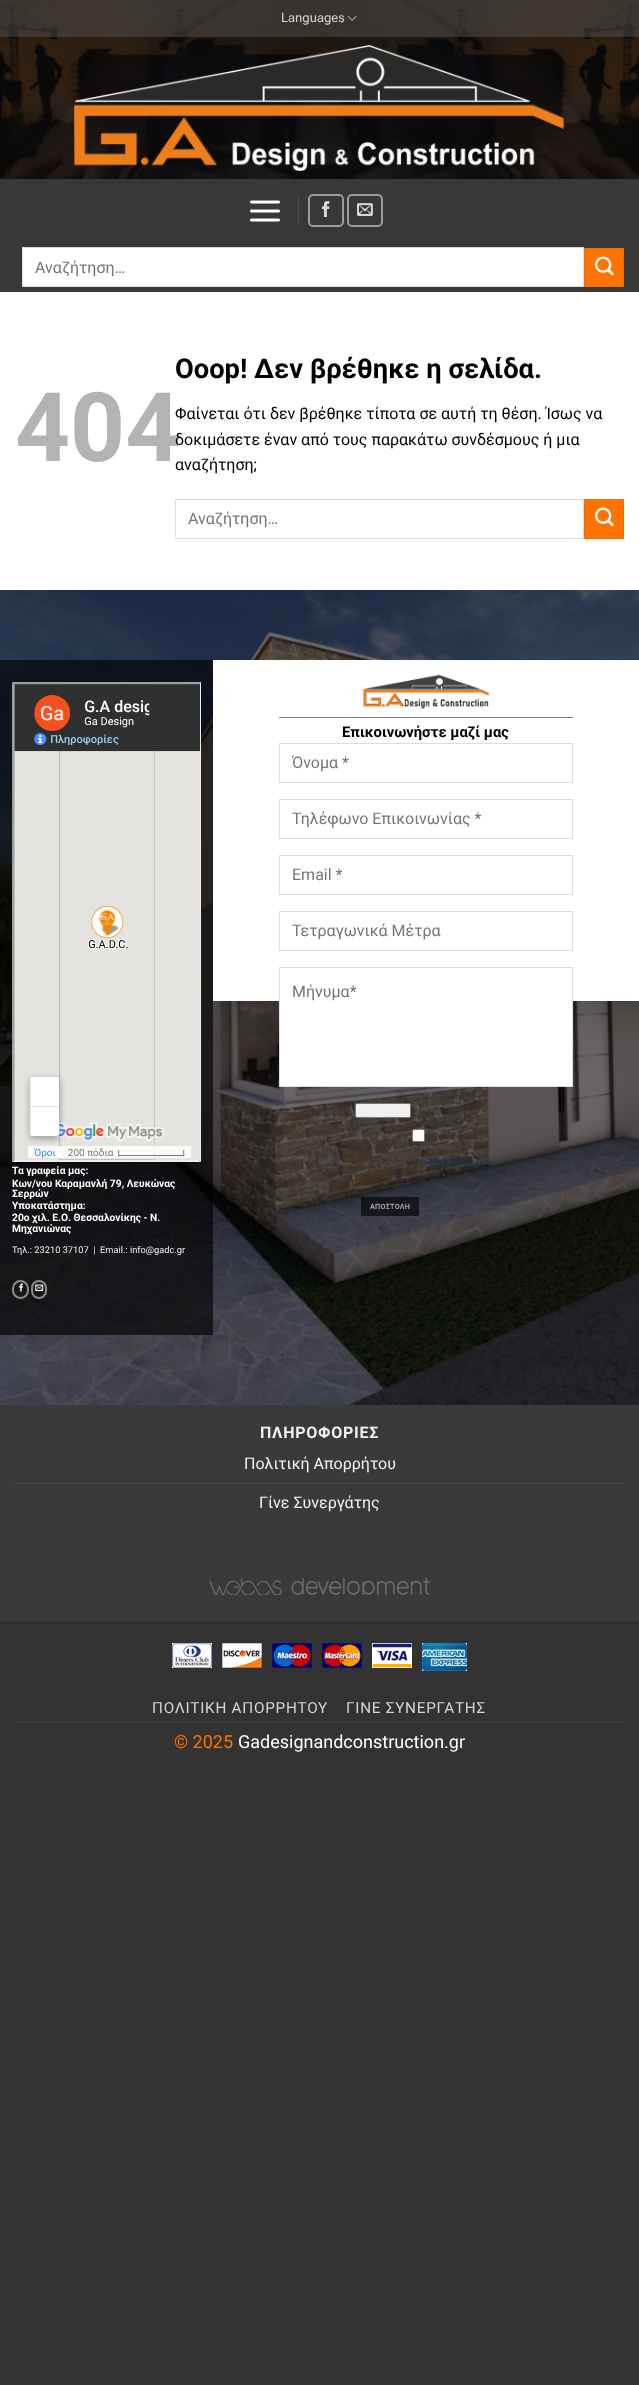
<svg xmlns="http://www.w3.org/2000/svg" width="639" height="2385">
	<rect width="100%" height="100%" fill="#333333" />
	<rect x="0" y="292" width="639" height="298" fill="#FFFFFF" />
	<image x="0" y="0" width="639" height="179" href="assets/img1.png" />
	<rect x="0" y="0" width="639" height="37" fill="#5E5E5E" fill-opacity="0.42" />
	<text x="281" y="22" font-family="Roboto Flex" font-size="13" fill="#D6D6D6">Languages</text>
	<image x="347" y="15" width="10" height="6" href="assets/img2.png" />
	<image x="74" y="45" width="491" height="126" href="assets/img3.png" />
	<rect x="0" y="179" width="639" height="113" fill="#383838" />
	<image x="250" y="200" width="30" height="22" href="assets/img4.png" />
	<rect x="298" y="196" width="1" height="30" fill="#4C4C4C" />
	<rect x="309" y="195" width="34" height="31" rx="4" fill="none" stroke="#9C9C9C" stroke-width="2" />
	<image x="321" y="201" width="9" height="16" href="assets/img5.png" />
	<rect x="348" y="195" width="34" height="31" rx="4" fill="none" stroke="#9C9C9C" stroke-width="2" />
	<image x="357" y="203" width="16" height="13" href="assets/img6.png" />
	<rect x="22.5" y="247.5" width="561" height="39" fill="#FFFFFF" stroke="#DDDDDD" />
	<text x="35" y="273" font-family="Roboto" font-size="16" fill="#757575">Αναζήτηση…</text>
	<rect x="584.5" y="248.5" width="39" height="38" fill="#FF7300" stroke="#F26D00" />
	<image x="595" y="256" width="19" height="20" href="assets/img7.png" />
	<text x="15" y="461" font-family="Roboto" font-size="96" font-weight="700" fill="#B3B3B3">404</text>
	<text x="175" y="378" font-family="Roboto" font-size="27.25" font-weight="700" fill="#000000">Ooop! Δεν βρέθηκε η σελίδα.</text>
	<g font-family="Roboto" font-size="16" fill="#000000">
		<text x="175" y="419">Φαίνεται ότι δεν βρέθηκε τίποτα σε αυτή τη θέση. Ίσως να</text>
		<text x="175" y="445">δοκιμάσετε έναν από τους παρακάτω συνδέσμους ή μια</text>
		<text x="175" y="470">αναζήτηση;</text>
	</g>
	<rect x="175.5" y="499.5" width="408" height="39" fill="none" stroke="#DDDDDD" />
	<text x="188" y="524" font-family="Roboto" font-size="16" fill="#757575">Αναζήτηση…</text>
	<rect x="584.5" y="499.5" width="39" height="39" fill="#FF7300" stroke="#F26D00" />
	<image x="595" y="507" width="19" height="20" href="assets/img7.png" />
	<image x="0" y="590" width="639" height="815" href="assets/img8.png" />
	<rect x="0" y="660" width="213" height="675" fill="#000000" fill-opacity="0.63" />
	<path d="M12 682H201L199 684H14Z" fill="#9F9F9F" />
	<path d="M201 682V1162L199 1160V684Z" fill="#EEEEEE" />
	<path d="M201 1162H12L14 1160H199Z" fill="#EEEEEE" />
	<path d="M12 1162V682L14 684V1160Z" fill="#9F9F9F" />
	<image x="14" y="684" width="186" height="476" href="assets/img9.png" />
	<g font-family="Roboto" font-size="10.25" font-weight="700" fill="#FFFFFF">
		<text x="12" y="1174">Τα γραφεία μας:</text>
		<text x="12" y="1187">Κων/νου Καραμανλή 79, Λευκώνας</text>
		<text x="12" y="1197">Σερρών</text>
		<text x="12" y="1209">Υποκατάστημα:</text>
		<text x="12" y="1221">20ο χιλ. Ε.Ο. Θεσσαλονίκης - Ν.</text>
		<text x="12" y="1232">Μηχανιώνας</text>
	</g>
	<text x="12" y="1253" font-family="Roboto" font-size="9.25" fill="#F1F1F1" xml:space="preserve">Τηλ.: 23210 37107  |  Email.: info@gadc.gr</text>
	<rect x="13" y="1281" width="15" height="17" rx="7.5" fill="none" stroke="#FFFFFF" stroke-opacity="0.5" stroke-width="2" />
	<image x="19" y="1283" width="4" height="9" href="assets/img10.png" />
	<rect x="32" y="1281" width="14" height="17" rx="7" fill="none" stroke="#FFFFFF" stroke-opacity="0.5" stroke-width="2" />
	<image x="35" y="1284" width="9" height="8" href="assets/img11.png" />
	<rect x="213" y="660" width="426" height="341" fill="#FFFFFF" />
	<image x="363" y="674" width="127" height="35" href="assets/img12.png" />
	<rect x="279" y="717" width="294" height="1" fill="#7F7F7F" />
	<text x="342" y="737" font-family="Roboto" font-size="14.8" font-weight="700" fill="#000000">Επικοινωνήστε μαζί μας</text>
	<rect x="279.5" y="743.5" width="293" height="39" fill="none" stroke="#DDDDDD" />
	<text x="292" y="768" font-family="Roboto" font-size="16" fill="#757575">Όνομα *</text>
	<rect x="279.5" y="799.5" width="293" height="39" fill="none" stroke="#DDDDDD" />
	<text x="292" y="824" font-family="Roboto" font-size="16" fill="#757575">Τηλέφωνο Επικοινωνίας *</text>
	<rect x="279.5" y="855.5" width="293" height="39" fill="none" stroke="#DDDDDD" />
	<text x="292" y="880" font-family="Roboto" font-size="16" fill="#757575">Email *</text>
	<rect x="279.5" y="911.5" width="293" height="39" fill="none" stroke="#DDDDDD" />
	<text x="292" y="936" font-family="Roboto" font-size="16" fill="#757575">Τετραγωνικά Μέτρα</text>
	<rect x="280" y="1001" width="292" height="85" fill="#FFFFFF" />
	<rect x="279.5" y="967.5" width="293" height="119" fill="none" stroke="#DDDDDD" />
	<text x="292" y="997" font-family="Roboto" font-size="16" fill="#757575">Μήνυμα*</text>
	<rect x="355.5" y="1103.5" width="55" height="14" rx="1.5" fill="#EFEFEF" stroke="#767676" />
	<text x="415" y="1113" font-family="Roboto" font-size="7.5" fill="#333333">N</text>
	<rect x="412.5" y="1129.5" width="12" height="12" rx="1.5" fill="#FFFFFF" stroke="#767676" />
	<text x="420" y="1165" font-family="Roboto" font-size="7.5" fill="#0E3771">Πολιτική Απορρήτου</text>
	<rect x="361" y="1197" width="58" height="19" fill="#000000" fill-opacity="0.6" />
	<text x="370" y="1209" font-family="Roboto" font-size="7.25" font-weight="700" letter-spacing="0.25" fill="#A2A2A4">ΑΠΟΣΤΟΛΗ</text>
	<rect x="0" y="1405" width="639" height="216" fill="#3A3A3A" />
	<text x="260" y="1438" font-family="Roboto" font-size="16" font-weight="700" letter-spacing="0.75" fill="#F1F1F1">ΠΛΗΡΟΦΟΡΙΕΣ</text>
	<text x="244" y="1469" font-family="Roboto" font-size="16" fill="#F1F1F1">Πολιτική Απορρήτου</text>
	<rect x="15" y="1483" width="609" height="1" fill="#4A4A4A" />
	<text x="259" y="1508" font-family="Roboto" font-size="16" fill="#F1F1F1">Γίνε Συνεργάτης</text>
	<image x="209" y="1578" width="221" height="17" href="assets/img13.png" />
	<image x="172" y="1643" width="295" height="28" href="assets/img14.png" />
	<rect x="15" y="1722" width="609" height="1" fill="#404040" />
	<g font-family="Roboto" font-size="15.25" letter-spacing="0.75" fill="#D6D6D6">
		<text x="152" y="1713">ΠΟΛΙΤΙΚΗ ΑΠΟΡΡΗΤΟΥ</text>
		<text x="346" y="1713">ΓΙΝΕ ΣΥΝΕΡΓΑΤΗΣ</text>
	</g>
	<text x="174" y="1748" font-family="Roboto" font-size="18" fill="#FF7300">© 2025</text>
	<text x="238" y="1748" font-family="Roboto" font-size="18" fill="#FFFFFF">Gadesignandconstruction.gr</text>
</svg>
